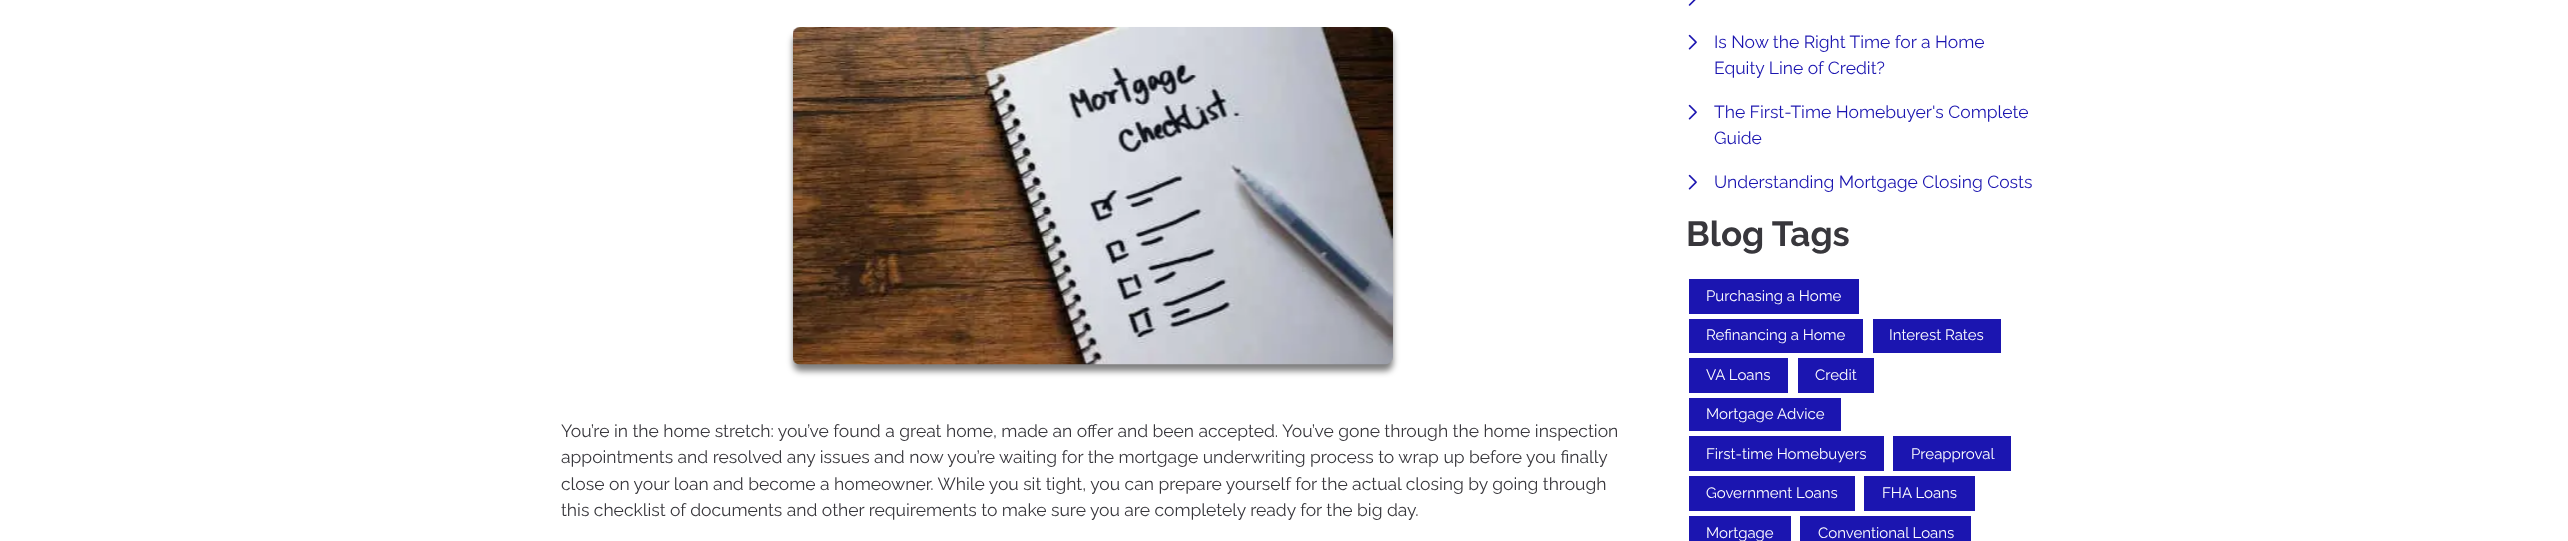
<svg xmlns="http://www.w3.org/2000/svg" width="2568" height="541">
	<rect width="100%" height="100%" fill="#FFFFFF" />
	<rect x="793" y="34" width="600" height="337" rx="8" fill="#000000" fill-opacity="0.5" filter="blur(3px)" />
	<image x="793" y="27" width="600" height="338" href="assets/img1.png" />
	<g font-family="Raleway" font-size="17.5" fill="#38373C">
		<text x="561" y="437">You’re in the home stretch: you’ve found a great home, made an offer and been accepted. You’ve gone through the home inspection</text>
		<text x="561" y="463">appointments and resolved any issues and now you’re waiting for the mortgage underwriting process to wrap up before you finally</text>
		<text x="561" y="490">close on your loan and become a homeowner. While you sit tight, you can prepare yourself for the actual closing by going through</text>
		<text x="561" y="516">this checklist of documents and other requirements to make sure you are completely ready for the big day.</text>
	</g>
	<image x="1688" y="0" width="8" height="6" href="assets/img2.png" />
	<image x="1688" y="34" width="9" height="16" href="assets/img3.png" />
	<g font-family="Raleway" font-size="17.5" fill="#1B15B0">
		<text x="1714" y="48">Is Now the Right Time for a Home</text>
		<text x="1714" y="74">Equity Line of Credit?</text>
	</g>
	<image x="1688" y="104" width="9" height="16" href="assets/img3.png" />
	<g font-family="Raleway" font-size="17.5" fill="#1B15B0">
		<text x="1714" y="118">The First-Time Homebuyer's Complete</text>
		<text x="1714" y="144">Guide</text>
	</g>
	<image x="1688" y="174" width="9" height="16" href="assets/img3.png" />
	<text x="1714" y="188" font-family="Raleway" font-size="17.5" fill="#1B15B0">Understanding Mortgage Closing Costs</text>
	<text x="1686" y="246" font-family="Raleway" font-size="35" font-weight="700" fill="#38373C">Blog Tags</text>
	<rect x="1689" y="279" width="170" height="35" fill="#1B15B0" />
	<text x="1706" y="301" font-family="Raleway" font-size="15" fill="#FFFFFF">Purchasing a Home</text>
	<rect x="1689" y="319" width="174" height="34" fill="#1B15B0" />
	<text x="1706" y="340" font-family="Raleway" font-size="15" fill="#FFFFFF">Refinancing a Home</text>
	<rect x="1873" y="319" width="128" height="34" fill="#1B15B0" />
	<text x="1889" y="340" font-family="Raleway" font-size="15" fill="#FFFFFF">Interest Rates</text>
	<rect x="1689" y="358" width="99" height="35" fill="#1B15B0" />
	<text x="1706" y="380" font-family="Raleway" font-size="15" fill="#FFFFFF">VA Loans</text>
	<rect x="1798" y="358" width="76" height="35" fill="#1B15B0" />
	<text x="1815" y="380" font-family="Raleway" font-size="15" fill="#FFFFFF">Credit</text>
	<rect x="1689" y="398" width="152" height="33" fill="#1B15B0" />
	<text x="1706" y="419" font-family="Raleway" font-size="15" fill="#FFFFFF">Mortgage Advice</text>
	<rect x="1689" y="436" width="195" height="35" fill="#1B15B0" />
	<text x="1706" y="459" font-family="Raleway" font-size="15" fill="#FFFFFF">First-time Homebuyers</text>
	<rect x="1893" y="436" width="118" height="35" fill="#1B15B0" />
	<text x="1911" y="459" font-family="Raleway" font-size="15" fill="#FFFFFF">Preapproval</text>
	<rect x="1689" y="476" width="166" height="35" fill="#1B15B0" />
	<text x="1706" y="498" font-family="Raleway" font-size="15" fill="#FFFFFF">Government Loans</text>
	<rect x="1864" y="476" width="111" height="35" fill="#1B15B0" />
	<text x="1882" y="498" font-family="Raleway" font-size="15" fill="#FFFFFF">FHA Loans</text>
	<rect x="1689" y="516" width="102" height="25" fill="#1B15B0" />
	<text x="1706" y="538" font-family="Raleway" font-size="15" fill="#FFFFFF">Mortgage</text>
	<rect x="1800" y="516" width="171" height="25" fill="#1B15B0" />
	<text x="1818" y="538" font-family="Raleway" font-size="15" fill="#FFFFFF">Conventional Loans</text>
</svg>
